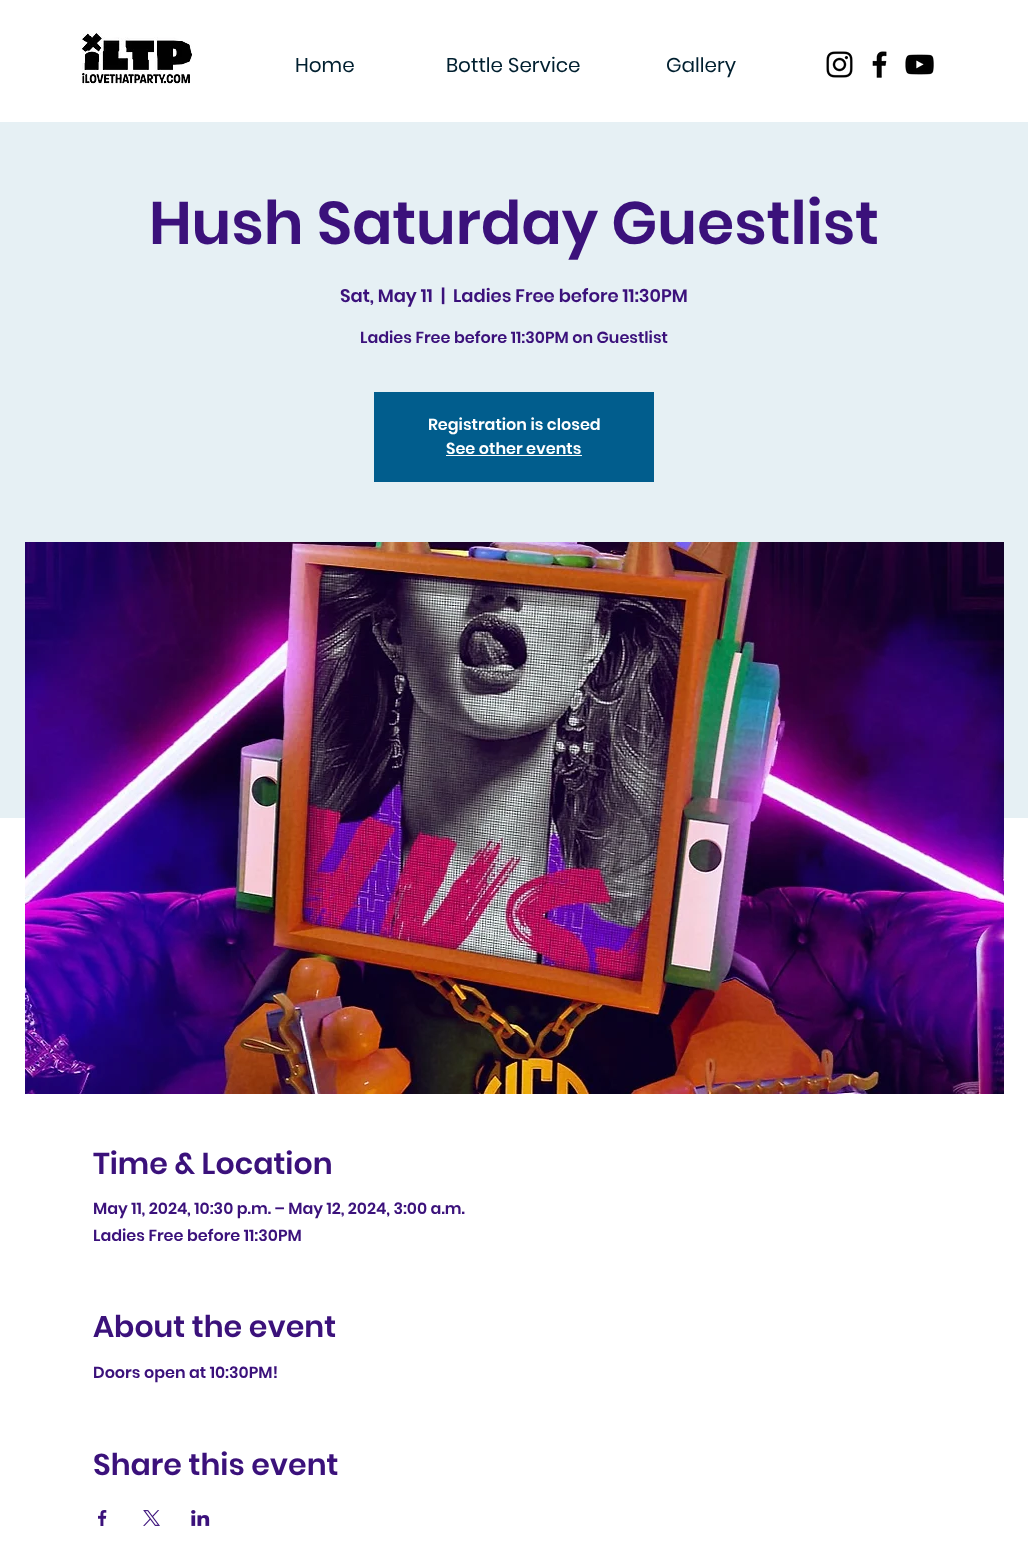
<svg xmlns="http://www.w3.org/2000/svg" width="1028" height="1549">
	<rect width="100%" height="100%" fill="#FFFFFF" />
	<image x="82" y="33" width="110" height="52" href="assets/img1.png" />
	<g font-family="Poppins" font-size="20" fill="#001F2F">
		<text x="295" y="72">Home</text>
		<text x="446" y="72">Bottle Service</text>
		<text x="666" y="72">Gallery</text>
	</g>
	<image x="826" y="51" width="27" height="27" href="assets/img2.png" />
	<image x="872" y="51" width="15" height="27" href="assets/img3.png" />
	<image x="905" y="54" width="29" height="21" href="assets/img4.png" />
	<rect x="0" y="122" width="1028" height="696" fill="#E6F0F4" />
	<text x="149" y="244" font-family="Poppins" font-size="60" font-weight="600" fill="#3B117B">Hush Saturday Guestlist</text>
	<g font-family="Poppins" font-size="18" font-weight="600" fill="#3B117B">
		<text x="340" y="302">Sat, May 11</text>
		<text x="441" y="302">|</text>
		<text x="453" y="302">Ladies Free before 11:30PM</text>
	</g>
	<text x="360" y="343" font-family="Poppins" font-size="16" font-weight="600" fill="#3B117B">Ladies Free before 11:30PM on Guestlist</text>
	<rect x="374" y="392" width="280" height="90" fill="#015D8D" />
	<g font-family="Poppins" font-size="16" font-weight="600" fill="#FFFFFF">
		<text x="428" y="430">Registration is closed</text>
		<text x="446" y="454">See other events</text>
	</g>
	<rect x="446" y="455" width="136" height="1" fill="#FFFFFF" />
	<image x="25" y="542" width="979" height="552" href="assets/img5.png" />
	<text x="93" y="1174" font-family="Poppins" font-size="30" font-weight="600" fill="#3B117B">Time &amp; Location</text>
	<g font-family="Poppins" font-size="16" font-weight="600" fill="#3B117B">
		<text x="93" y="1214">May 11, 2024, 10:30 p.m. – May 12, 2024, 3:00 a.m.</text>
		<text x="93" y="1241">Ladies Free before 11:30PM</text>
	</g>
	<text x="93" y="1337" font-family="Poppins" font-size="30" font-weight="600" fill="#3B117B">About the event</text>
	<text x="93" y="1378" font-family="Poppins" font-size="16" font-weight="600" fill="#3B117B">Doors open at 10:30PM!</text>
	<text x="93" y="1475" font-family="Poppins" font-size="30" font-weight="600" fill="#3B117B">Share this event</text>
	<image x="98" y="1510" width="9" height="16" href="assets/img6.png" />
	<image x="143" y="1510" width="17" height="16" href="assets/img7.png" />
	<image x="191" y="1510" width="19" height="16" href="assets/img8.png" />
</svg>
